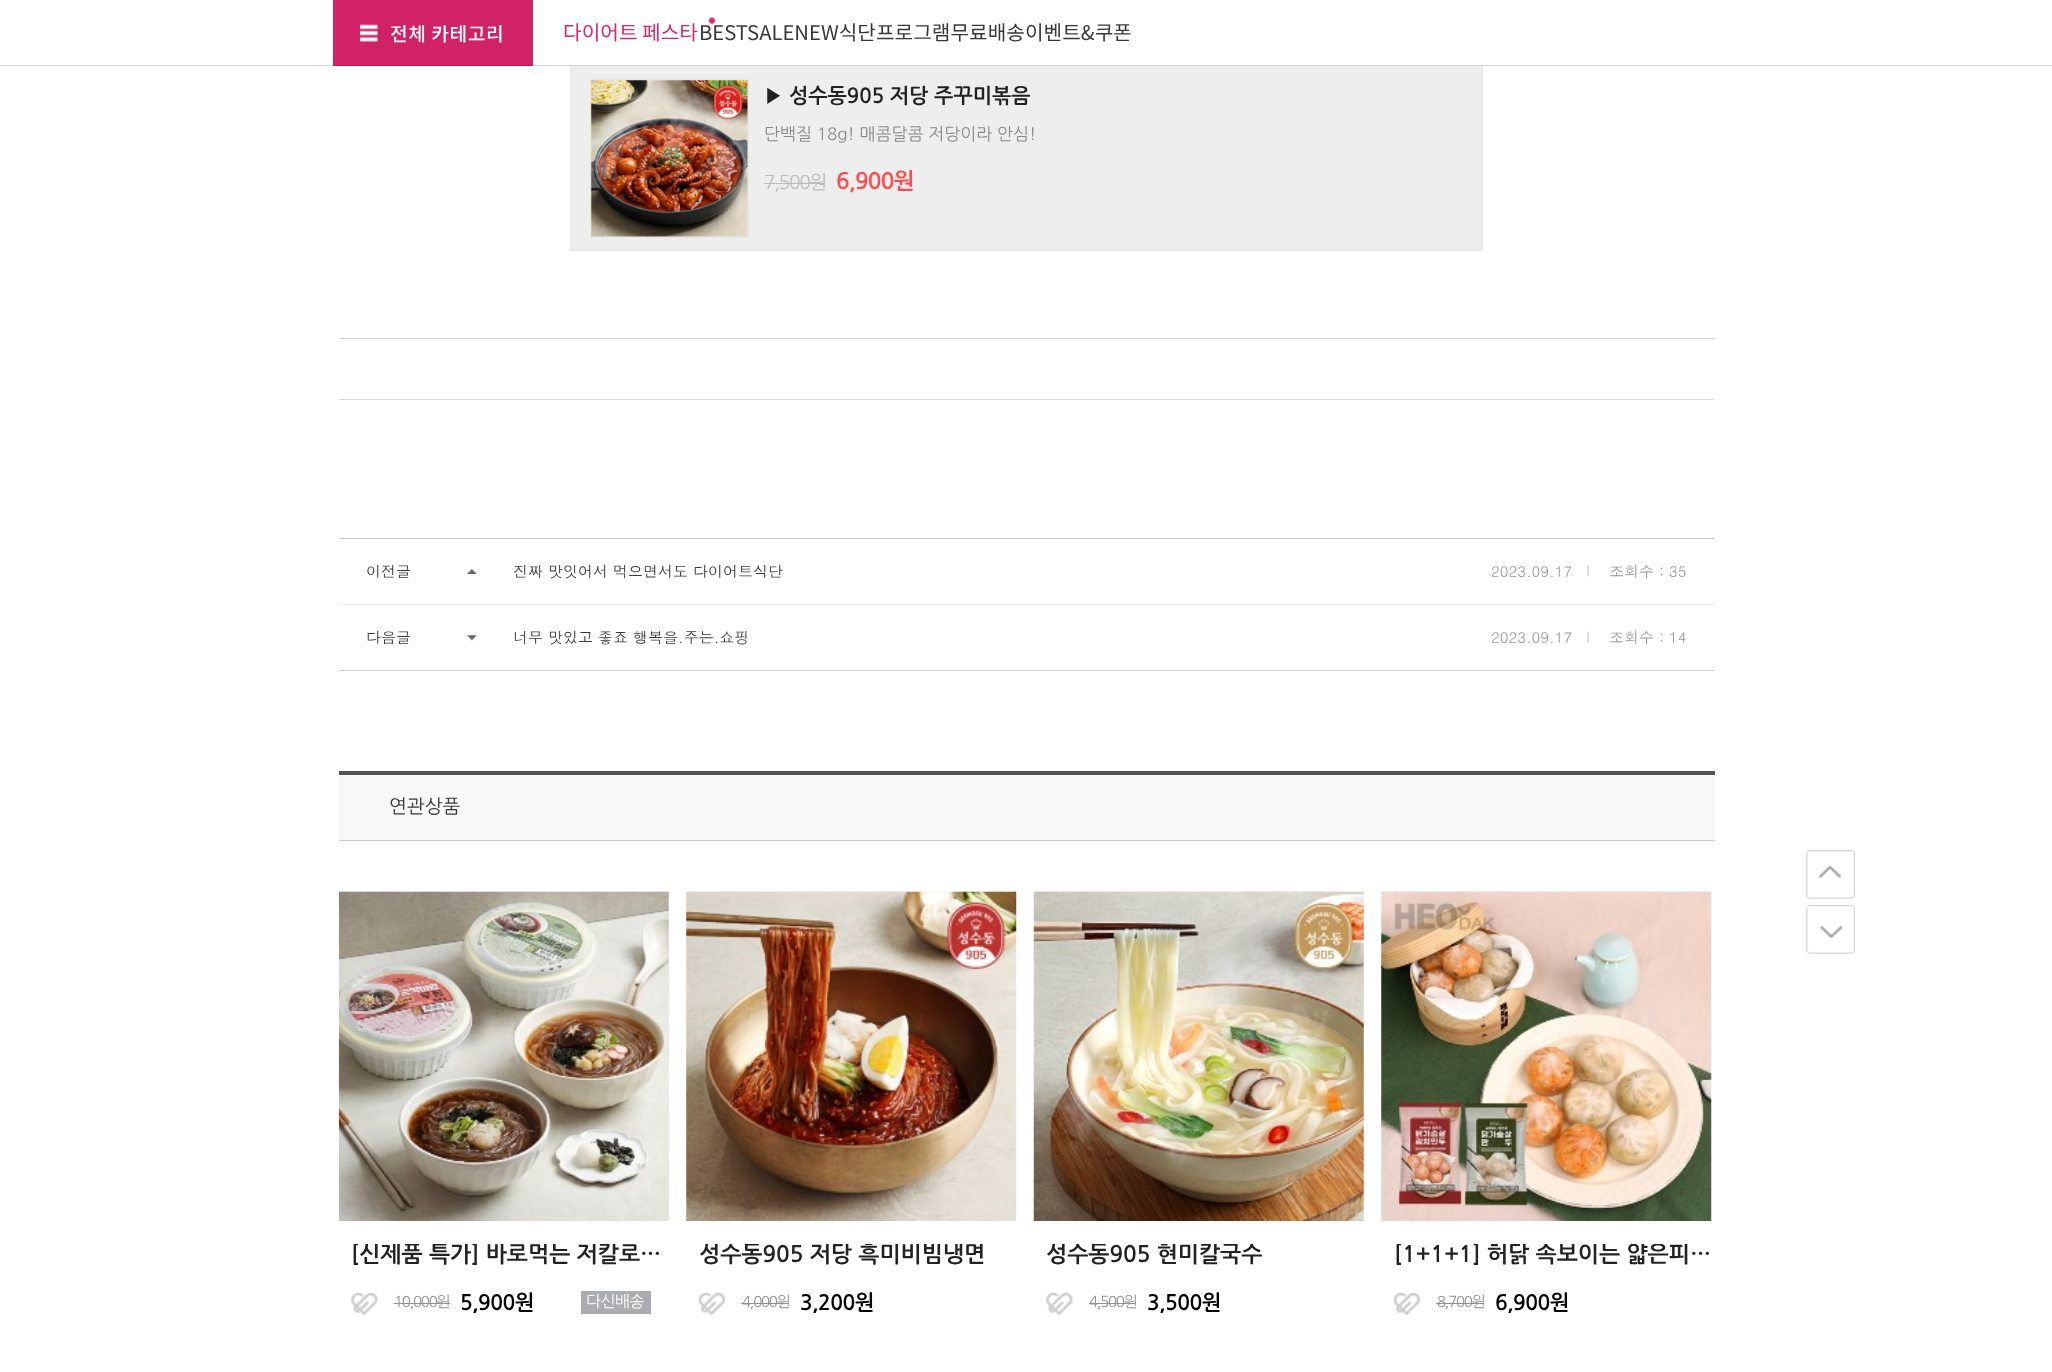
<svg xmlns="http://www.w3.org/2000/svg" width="2052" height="1372">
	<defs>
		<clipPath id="clip1"><rect x="351" y="1244" width="320" height="30" /></clipPath>
		<clipPath id="clip2"><rect x="699" y="1244" width="320" height="30" /></clipPath>
		<clipPath id="clip3"><rect x="1046" y="1244" width="320" height="30" /></clipPath>
		<clipPath id="clip4"><rect x="1394" y="1244" width="320" height="30" /></clipPath>
	</defs>
	<rect width="100%" height="100%" fill="#FFFFFF" />
	<rect x="570.5" y="65.5" width="912" height="185" fill="#EEEEEE" stroke="#E6E6E6" />
	<rect x="0" y="65" width="2052" height="1" fill="#D4D4D4" />
	<rect x="333" y="0" width="200" height="65" fill="#D12268" />
	<rect x="333" y="65" width="200" height="1" fill="#C1165A" />
	<image x="360" y="24" width="18" height="18" href="assets/img1.png" />
	<text x="390" y="41" font-family="Noto Sans KR" font-size="19.25" font-weight="500" letter-spacing="0.5" fill="#FFFFFF">전체 카테고리</text>
	<image x="708" y="17" width="7" height="8" href="assets/img2.png" />
	<text x="563" y="40" font-family="Noto Sans KR" font-size="20.25" fill="#D7266D">다이어트 페스타</text>
	<text x="699" y="40" font-family="Noto Sans KR" font-size="20.25" fill="#383838">BESTSALENEW식단프로그램무료배송이벤트&amp;쿠폰</text>
	<rect x="339" y="399" width="1375" height="1" fill="#D9D9D9" />
	<rect x="590.5" y="79.5" width="158" height="158" fill="none" stroke="#E6E6E6" />
	<image x="591" y="80" width="157" height="157" href="assets/img3.png" />
	<text x="764" y="103" font-family="NanumGothic" font-size="20.5" font-weight="700" fill="#222222">▶ 성수동905 저당 주꾸미볶음</text>
	<text x="764" y="140" font-family="NanumGothic" font-size="17" fill="#8A8A8A">단백질 18g! 매콤달콤 저당이라 안심!</text>
	<text x="764" y="189" font-family="NanumGothic" font-size="19" letter-spacing="-1.25" fill="#BBBBBB">7,500원</text>
	<rect x="764" y="183" width="61" height="1" fill="#BBBBBB" />
	<text x="836" y="189" font-family="NanumGothic" font-size="22.5" font-weight="700" letter-spacing="-0.75" fill="#FF4C4D">6,900원</text>
	<rect x="339" y="338" width="1376" height="1" fill="#D9D9D9" />
	<rect x="339" y="538" width="1375" height="1" fill="#CCCCCC" />
	<image x="467" y="569" width="10" height="5" href="assets/img4.png" />
	<rect x="339" y="604" width="1375" height="1" fill="#E9E9E9" />
	<g font-family="Dotum" font-size="15" fill="#383838">
		<text x="366" y="577">이전글</text>
		<text x="513" y="577">진짜 맛잇어서 먹으면서도 다이어트식단</text>
	</g>
	<image x="1587" y="565" width="2" height="12" href="assets/img5.png" />
	<g font-family="Dotum" font-size="15" fill="#999999">
		<text x="1491" y="577">2023.09.17</text>
		<text x="1609" y="577">조회수 : 35</text>
	</g>
	<image x="467" y="635" width="10" height="6" href="assets/img6.png" />
	<rect x="339" y="670" width="1375" height="1" fill="#CCCCCC" />
	<g font-family="Dotum" font-size="15" fill="#383838">
		<text x="366" y="643">다음글</text>
		<text x="513" y="643">너무 맛있고 좋죠 행복을.주는.쇼핑</text>
	</g>
	<image x="1587" y="631" width="2" height="12" href="assets/img7.png" />
	<g font-family="Dotum" font-size="15" fill="#999999">
		<text x="1491" y="643">2023.09.17</text>
		<text x="1609" y="643">조회수 : 14</text>
	</g>
	<rect x="339" y="775" width="1376" height="65" fill="#F8F8F8" />
	<rect x="339" y="771" width="1376" height="4" fill="#555555" />
	<rect x="339" y="840" width="1376" height="1" fill="#CCCCCC" />
	<text x="389" y="813" font-family="NanumGothic" font-size="19" fill="#383838">연관상품</text>
	<rect x="339" y="891" width="330" height="330" fill="#F3F4F4" />
	<image x="338" y="891" width="331" height="331" href="assets/img8.png" />
	<rect x="339" y="1221" width="330" height="1" fill="#FFFFFF" />
	<g clip-path="url(#clip1)">
		<text x="351" y="1262" font-family="NanumGothic" font-size="22.5" font-weight="700" fill="#222222">[신제품 특가] 바로먹는 저칼로…</text>
	</g>
	<image x="351" y="1292" width="27" height="24" href="assets/img9.png" />
	<text x="394" y="1307" font-family="NanumGothic" font-size="15" letter-spacing="-1.25" fill="#909090">10,000원</text>
	<rect x="394" y="1303" width="56" height="1" fill="#909090" />
	<text x="460" y="1310" font-family="NanumGothic" font-size="21" font-weight="700" letter-spacing="-0.5" fill="#000000">5,900원</text>
	<rect x="581" y="1291" width="70" height="23" fill="#AAACAF" />
	<text x="586" y="1307" font-family="NanumGothic" font-size="16" letter-spacing="-0.5" fill="#FFFFFF">다신배송</text>
	<rect x="686" y="891" width="330" height="330" fill="#F3F4F4" />
	<image x="686" y="891" width="331" height="330" href="assets/img10.png" />
	<g clip-path="url(#clip2)">
		<text x="699" y="1262" font-family="NanumGothic" font-size="22.5" font-weight="700" fill="#222222">성수동905 저당 흑미비빔냉면</text>
	</g>
	<image x="698" y="1292" width="27" height="24" href="assets/img11.png" />
	<text x="742" y="1307" font-family="NanumGothic" font-size="15" letter-spacing="-1.25" fill="#909090">4,000원</text>
	<rect x="741" y="1303" width="48" height="1" fill="#909090" />
	<text x="800" y="1310" font-family="NanumGothic" font-size="21" font-weight="700" letter-spacing="-0.5" fill="#000000">3,200원</text>
	<rect x="1034" y="891" width="330" height="330" fill="#F3F4F4" />
	<image x="1033" y="891" width="331" height="331" href="assets/img12.png" />
	<rect x="1034" y="1221" width="330" height="1" fill="#FFFFFF" />
	<g clip-path="url(#clip3)">
		<text x="1046" y="1262" font-family="NanumGothic" font-size="22.5" font-weight="700" fill="#222222">성수동905 현미칼국수</text>
	</g>
	<image x="1046" y="1292" width="27" height="24" href="assets/img9.png" />
	<text x="1089" y="1307" font-family="NanumGothic" font-size="15" letter-spacing="-1.25" fill="#909090">4,500원</text>
	<rect x="1089" y="1303" width="47" height="1" fill="#909090" />
	<text x="1147" y="1310" font-family="NanumGothic" font-size="21" font-weight="700" letter-spacing="-0.5" fill="#000000">3,500원</text>
	<rect x="1381" y="891" width="330" height="330" fill="#F3F4F4" />
	<image x="1381" y="891" width="331" height="330" href="assets/img13.png" />
	<g clip-path="url(#clip4)">
		<text x="1394" y="1262" font-family="NanumGothic" font-size="22.5" font-weight="700" fill="#222222">[1+1+1] 허닭 속보이는 얇은피…</text>
	</g>
	<image x="1393" y="1292" width="27" height="24" href="assets/img11.png" />
	<text x="1437" y="1307" font-family="NanumGothic" font-size="15" letter-spacing="-1.25" fill="#909090">8,700원</text>
	<rect x="1436" y="1303" width="48" height="1" fill="#909090" />
	<text x="1495" y="1310" font-family="NanumGothic" font-size="21" font-weight="700" letter-spacing="-0.5" fill="#000000">6,900원</text>
	<image x="1806" y="850" width="49" height="49" href="assets/img14.png" />
	<image x="1806" y="905" width="49" height="49" href="assets/img15.png" />
</svg>
